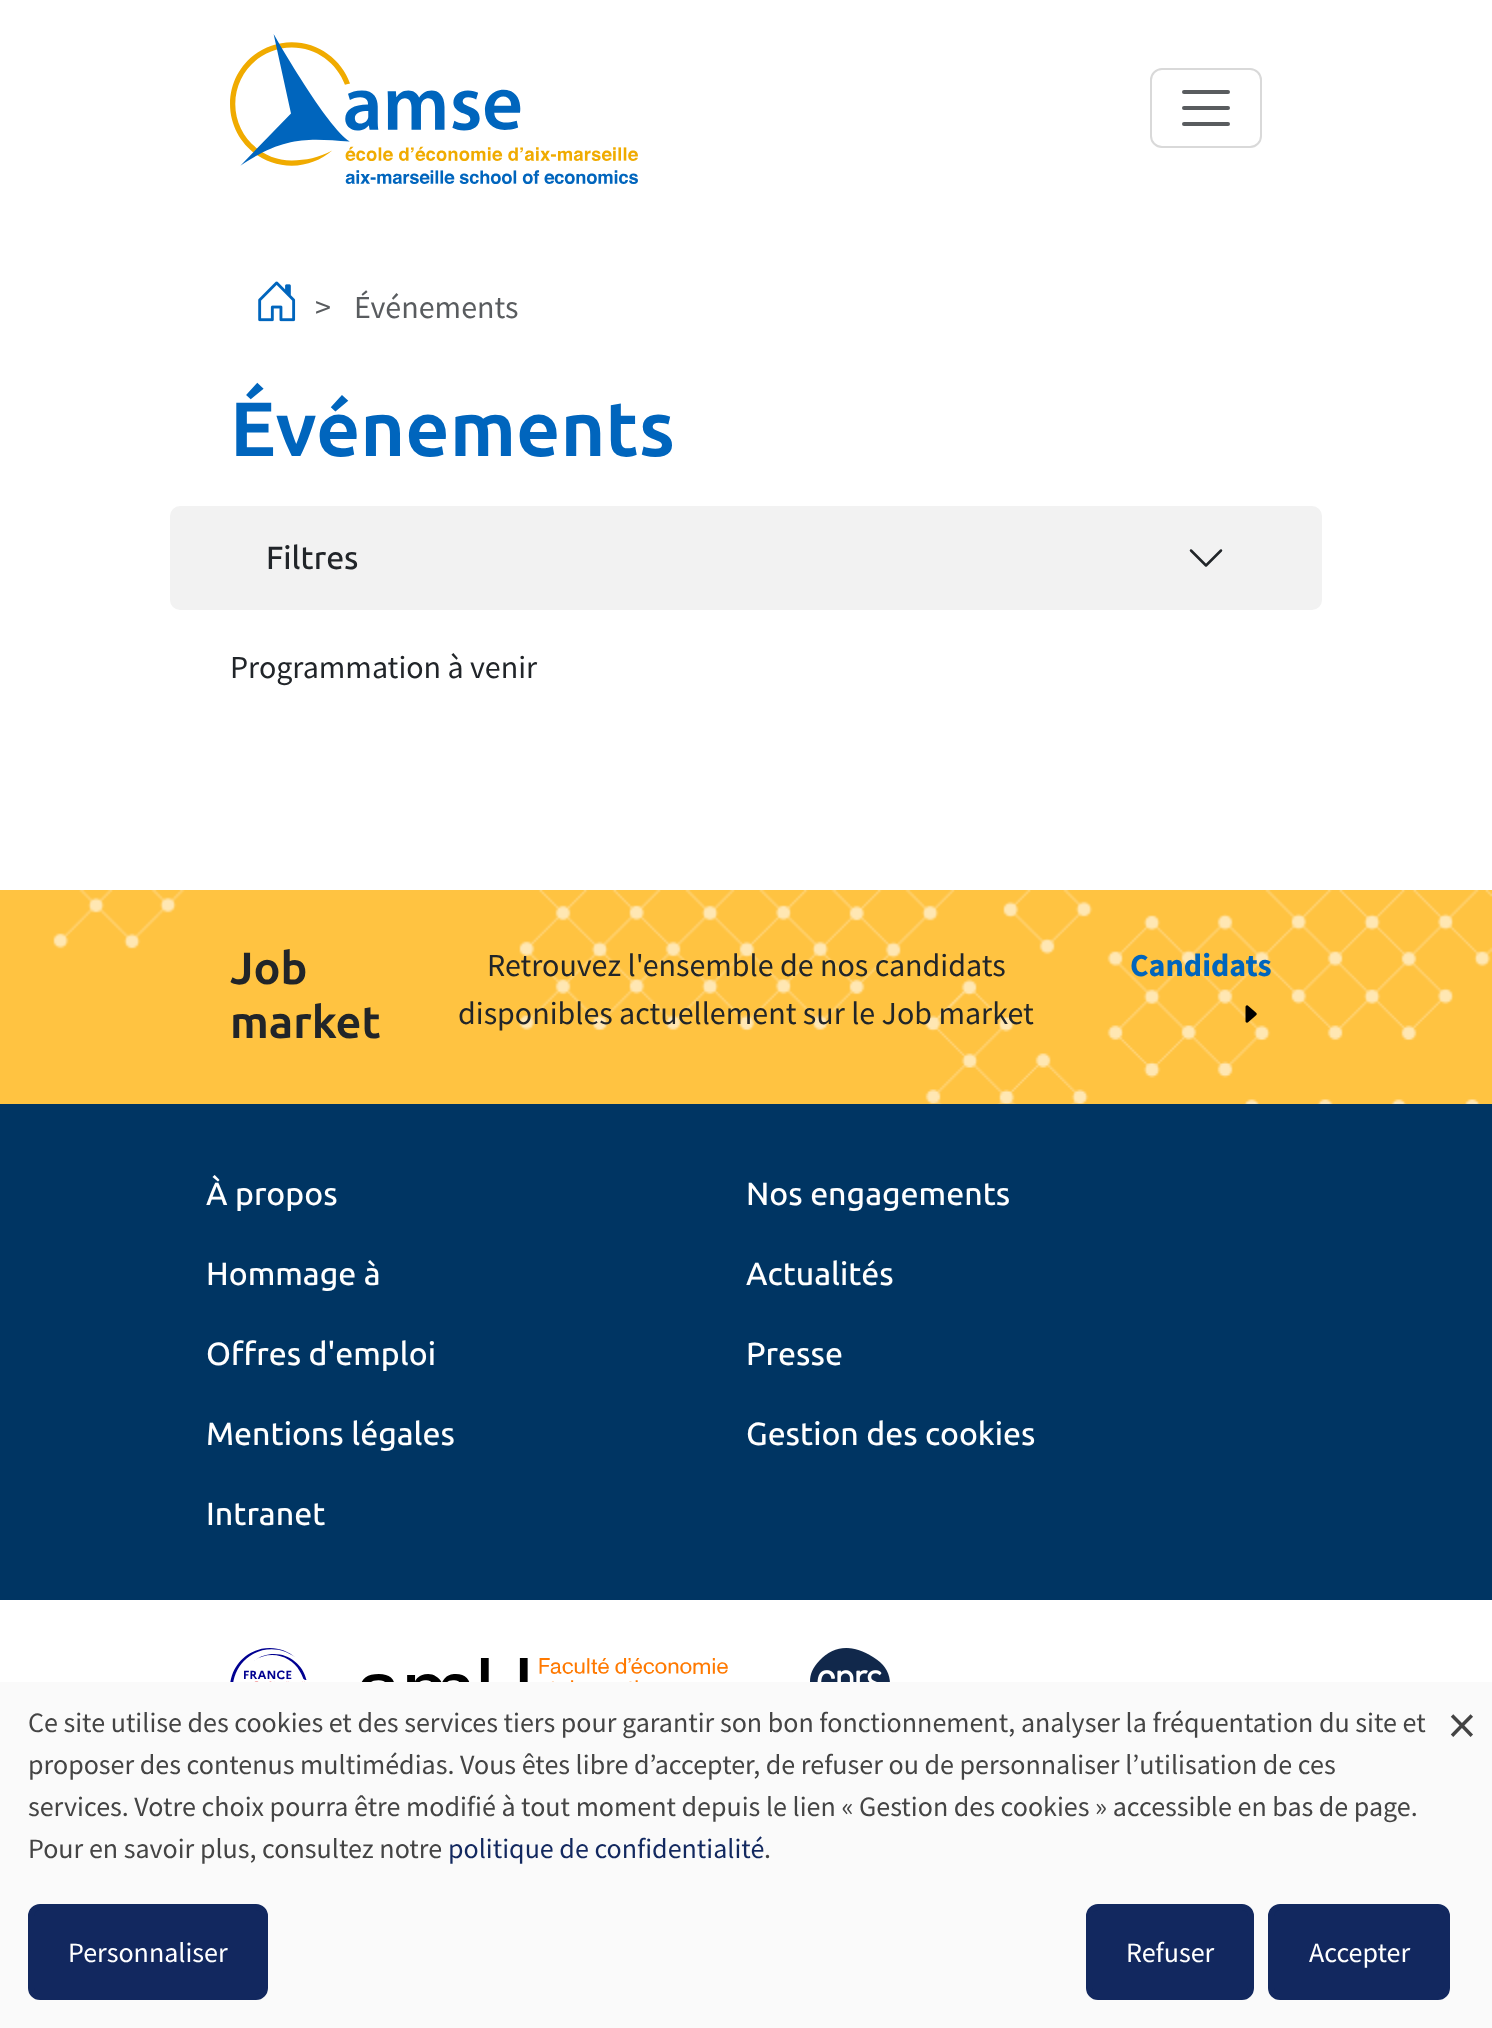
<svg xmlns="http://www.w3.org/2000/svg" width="1492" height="2028">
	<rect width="100%" height="100%" fill="#FFFFFF" />
	<image x="230" y="34" width="408" height="150" href="assets/img1.png" />
	<rect x="1151" y="69" width="110" height="78" rx="11" fill="none" stroke="#D9D9D9" stroke-width="2" />
	<path d="M1184 92H1228M1184 108H1228M1184 124H1228" fill="none" stroke="#595C5F" stroke-width="4" stroke-linecap="round" />
	<image x="258" y="281" width="38" height="41" href="assets/img2.png" />
	<g font-family="Source Sans Pro" font-size="32" fill="#595C5F">
		<text x="315" y="318">&gt;</text>
		<text x="354" y="318">Événements</text>
	</g>
	<text x="230" y="456" font-family="Ubuntu" font-size="77" font-weight="700" fill="#0065BD">Événements</text>
	<rect x="170" y="506" width="1152" height="104" rx="10" fill="#F2F2F2" />
	<text x="266" y="569" font-family="Ubuntu" font-size="32" font-weight="500" fill="#212529">Filtres</text>
	<path d="M1191 550.5L1206 565.5L1221 550.5" fill="none" stroke="#212529" stroke-width="2.5" stroke-linecap="round" stroke-linejoin="round" />
	<text x="230" y="678" font-family="Source Sans Pro" font-size="32" fill="#212529">Programmation à venir</text>
	<rect x="0" y="890" width="1492" height="214" fill="#FFC341" />
	<image x="53" y="890" width="1439" height="214" href="assets/img3.png" />
	<g font-family="Ubuntu" font-size="45" font-weight="700" fill="#212529">
		<text x="230" y="984">Job</text>
		<text x="230" y="1038">market</text>
	</g>
	<g font-family="Source Sans Pro" font-size="32" fill="#212529">
		<text x="487" y="976">Retrouvez l'ensemble de nos candidats</text>
		<text x="458" y="1024">disponibles actuellement sur le Job market</text>
	</g>
	<text x="1130" y="976" font-family="Source Sans Pro" font-size="32" font-weight="700" fill="#0065BD">Candidats</text>
	<image x="1245" y="1005" width="12" height="18" href="assets/img4.png" />
	<rect x="0" y="1104" width="1492" height="496" fill="#003563" />
	<g font-family="Ubuntu" font-size="32" font-weight="500" fill="#FFFFFF">
		<text x="206" y="1205">À propos</text>
		<text x="746" y="1205">Nos engagements</text>
		<text x="206" y="1285">Hommage à</text>
		<text x="746" y="1285">Actualités</text>
		<text x="206" y="1365">Offres d'emploi</text>
		<text x="746" y="1365">Presse</text>
		<text x="206" y="1445">Mentions légales</text>
		<text x="746" y="1445">Gestion des cookies</text>
		<text x="206" y="1525">Intranet</text>
	</g>
	<image x="230" y="1648" width="77" height="34" href="assets/img5.png" />
	<image x="361" y="1658" width="367" height="24" href="assets/img6.png" />
	<image x="810" y="1648" width="80" height="34" href="assets/img7.png" />
	<rect x="0" y="1682" width="1492" height="346" fill="#FAFAFA" />
	<g font-family="Source Sans Pro" font-size="28" fill="#444444">
		<text x="28" y="1732">Ce site utilise des cookies et des services tiers pour garantir son bon fonctionnement, analyser la fréquentation du site et</text>
		<text x="28" y="1774">proposer des contenus multimédias. Vous êtes libre d’accepter, de refuser ou de personnaliser l’utilisation de ces</text>
		<text x="28" y="1816">services. Votre choix pourra être modifié à tout moment depuis le lien « Gestion des cookies » accessible en bas de page.</text>
		<text x="28" y="1858">Pour en savoir plus, consultez notre</text>
	</g>
	<text x="448" y="1858" font-family="Source Sans Pro" font-size="28" fill="#12285F">politique de confidentialité</text>
	<text x="764" y="1858" font-family="Source Sans Pro" font-size="28" fill="#444444">.</text>
	<rect x="31" y="1907" width="234" height="90" rx="9" fill="#12285F" stroke="#12285F" stroke-width="6" />
	<text x="68" y="1962" font-family="Source Sans Pro" font-size="28" fill="#FFFFFF">Personnaliser</text>
	<rect x="1089" y="1907" width="162" height="90" rx="9" fill="#12285F" stroke="#12285F" stroke-width="6" />
	<text x="1126" y="1962" font-family="Source Sans Pro" font-size="28" fill="#FFFFFF">Refuser</text>
	<rect x="1271" y="1907" width="176" height="90" rx="9" fill="#12285F" stroke="#12285F" stroke-width="6" />
	<text x="1309" y="1962" font-family="Source Sans Pro" font-size="28" fill="#FFFFFF">Accepter</text>
	<text x="1448" y="1744" font-family="Source Sans Pro" font-size="56" fill="#444444">×</text>
</svg>
